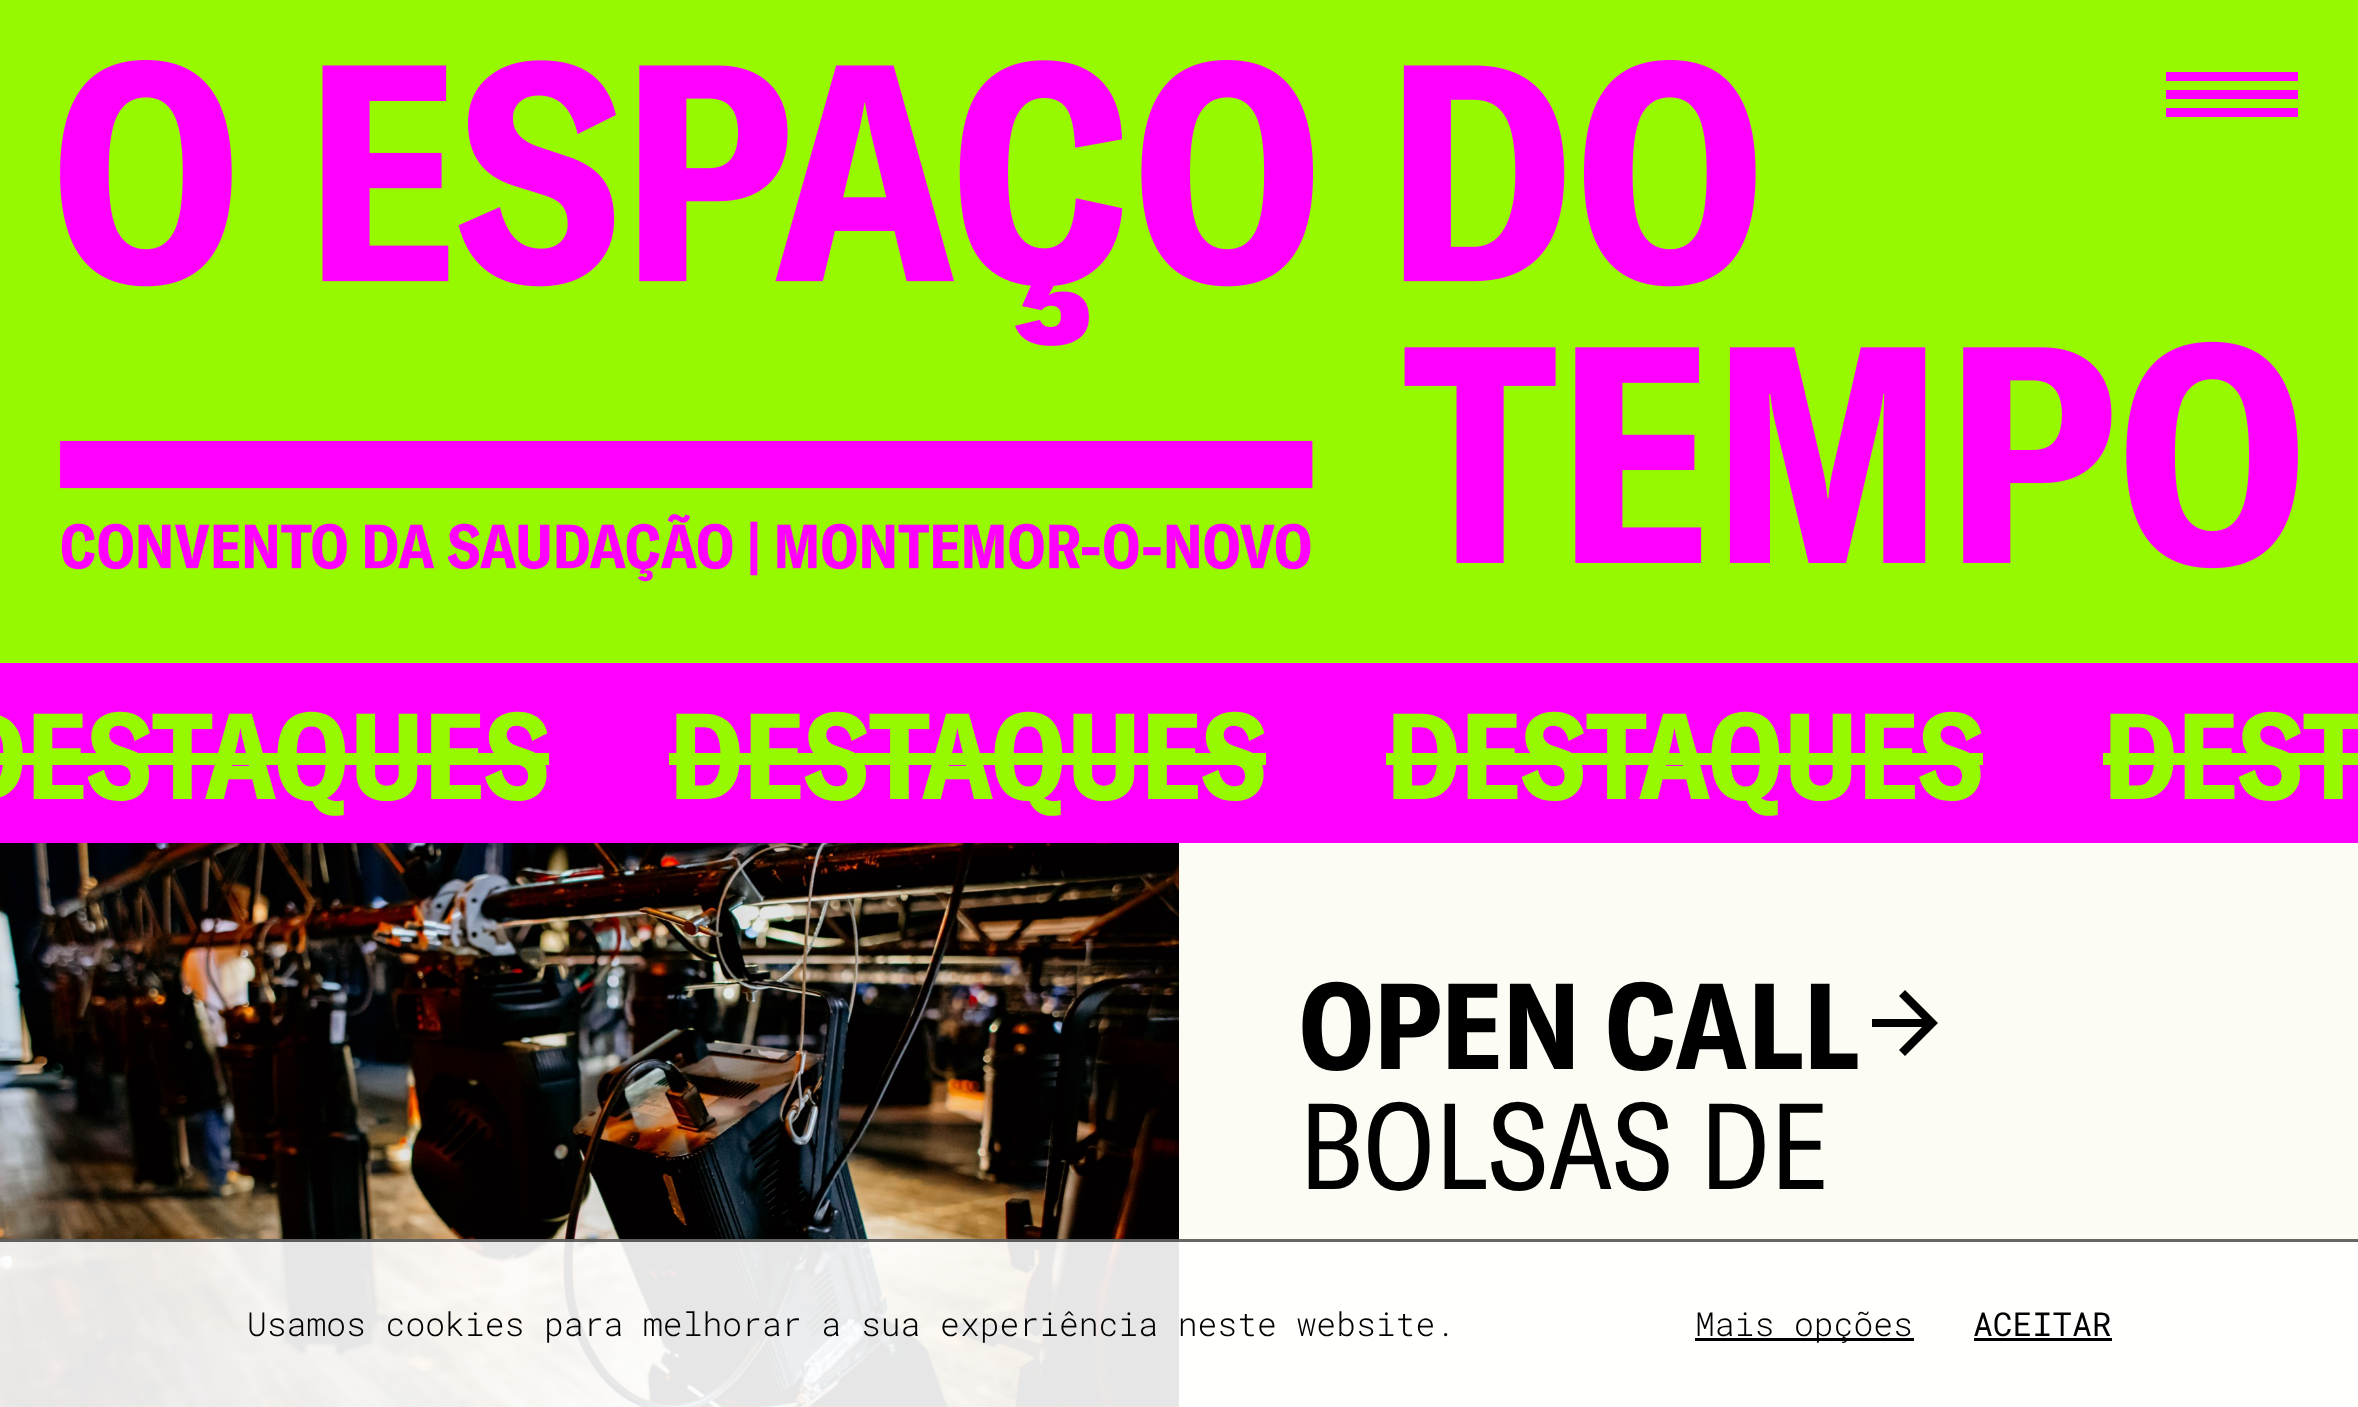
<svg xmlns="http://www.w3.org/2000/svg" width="2358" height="1407">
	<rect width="100%" height="100%" fill="#FCFCF4" />
	<rect x="0" y="0" width="2358" height="663" fill="#97F900" />
	<image x="60" y="60" width="2238" height="522" href="assets/img1.png" />
	<rect x="2166" y="72" width="132" height="9" fill="#FF00FF" />
	<rect x="2166" y="90" width="132" height="9" fill="#FF00FF" />
	<rect x="2166" y="108" width="132" height="9" fill="#FF00FF" />
	<rect x="0" y="663" width="2358" height="180" fill="#FF00FF" />
	<text x="-48" y="799" font-family="GT America" font-size="120" font-weight="700" fill="#97F900">DESTAQUES</text>
	<rect x="0" y="753" width="549" height="12" fill="#97F900" />
	<text x="669" y="799" font-family="GT America" font-size="120" font-weight="700" fill="#97F900">DESTAQUES</text>
	<rect x="669" y="753" width="597" height="12" fill="#97F900" />
	<text x="1386" y="799" font-family="GT America" font-size="120" font-weight="700" fill="#97F900">DESTAQUES</text>
	<rect x="1386" y="753" width="597" height="12" fill="#97F900" />
	<text x="2103" y="799" font-family="GT America" font-size="120" font-weight="700" fill="#97F900">DEST</text>
	<rect x="2103" y="753" width="255" height="12" fill="#97F900" />
	<image x="0" y="843" width="1179" height="564" href="assets/img2.png" />
	<text x="1299" y="1069" font-family="GT America" font-size="120" font-weight="700" fill="#000000">OPEN CALL</text>
	<path d="M1905 990L1899 996L1922 1019H1872V1027H1922L1899 1050L1905 1056L1938 1023Z" fill="#000000" />
	<text x="1299" y="1189" font-family="GT America" font-size="120" fill="#000000">BOLSAS DE</text>
	<rect x="0" y="1239" width="2358" height="168" fill="#FFFFFF" fill-opacity="0.9" />
	<rect x="0" y="1239" width="2358" height="3" fill="#000000" fill-opacity="0.6" />
	<text x="247" y="1336" font-family="Roboto Mono" font-size="33" font-weight="300" fill="#000000">Usamos cookies para melhorar a sua experiência neste website.</text>
	<rect x="1695" y="1338" width="219" height="3" fill="#000000" />
	<text x="1695" y="1336" font-family="Roboto Mono" font-size="33" font-weight="300" fill="#000000">Mais opções</text>
	<text x="1973" y="1336" font-family="Roboto Mono" font-size="33" fill="#000000">ACEITAR</text>
	<rect x="1974" y="1338" width="138" height="3" fill="#000000" />
</svg>
